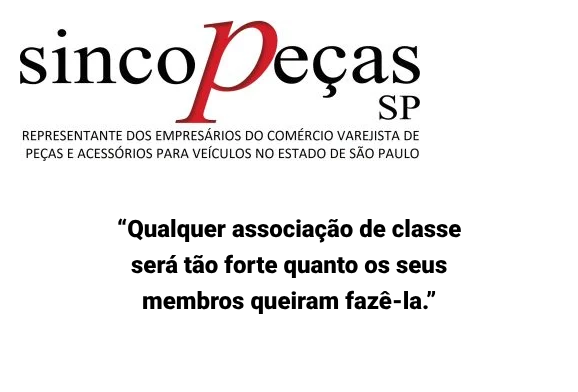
<svg xmlns="http://www.w3.org/2000/svg" width="578" height="392">
	<rect width="100%" height="100%" fill="#FFFFFF" />
	<image x="20" y="20" width="400" height="141" href="assets/img1.png" />
	<g font-family="Roboto" font-size="24" font-weight="900" fill="#000000">
		<text x="117" y="237">“Qualquer associação de classe</text>
		<text x="131" y="273">será tão forte quanto os seus</text>
		<text x="142" y="309">membros queiram fazê-la.”</text>
	</g>
</svg>
